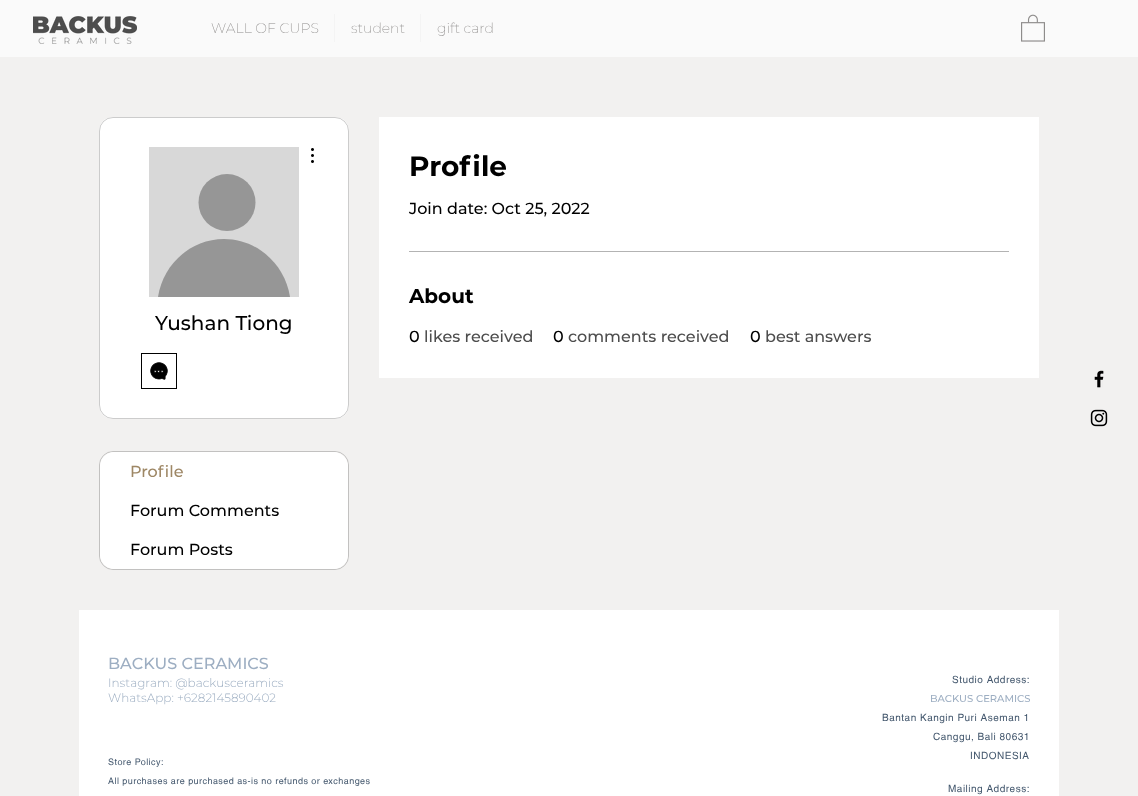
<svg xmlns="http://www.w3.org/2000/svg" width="1138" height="796">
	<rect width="100%" height="100%" fill="#F2F1F0" />
	<rect x="0" y="0" width="1138" height="57" fill="#FAFAFA" />
	<image x="33" y="16" width="104" height="28" href="assets/img1.png" />
	<text x="211" y="33" font-family="Montserrat" font-size="14" font-weight="200" fill="#8E8C8B">WALL OF CUPS</text>
	<rect x="334" y="14" width="1" height="28" fill="#F4F4F4" />
	<text x="351" y="33" font-family="Montserrat" font-size="14" font-weight="200" fill="#8E8C8B">student</text>
	<rect x="420" y="14" width="1" height="28" fill="#F4F4F4" />
	<text x="437" y="33" font-family="Montserrat" font-size="14" font-weight="200" fill="#8E8C8B">gift card</text>
	<image x="1021" y="14" width="24" height="28" href="assets/img2.png" />
	<rect x="379" y="117" width="660" height="261" fill="#FFFFFF" />
	<text x="409" y="176" font-family="Montserrat" font-size="28" font-weight="700" fill="#000000">Profile</text>
	<text x="409" y="214" font-family="Montserrat" font-size="16" font-weight="500" fill="#000000">Join date: Oct 25, 2022</text>
	<rect x="409" y="251" width="600" height="1" fill="#B3B3B3" />
	<text x="409" y="303" font-family="Montserrat" font-size="20" font-weight="700" fill="#000000">About</text>
	<text x="409" y="342" font-family="Montserrat" font-size="16" font-weight="500" fill="#000000">0</text>
	<text x="424" y="342" font-family="Montserrat" font-size="16" font-weight="500" fill="#4D4D4D">likes received</text>
	<text x="553" y="342" font-family="Montserrat" font-size="16" font-weight="500" fill="#000000">0</text>
	<text x="568" y="342" font-family="Montserrat" font-size="16" font-weight="500" fill="#4D4D4D">comments received</text>
	<text x="750" y="342" font-family="Montserrat" font-size="16" font-weight="500" fill="#000000">0</text>
	<text x="765" y="342" font-family="Montserrat" font-size="16" font-weight="500" fill="#4D4D4D">best answers</text>
	<rect x="99" y="117" width="250" height="302" rx="14" fill="#FFFFFF" />
	<rect x="99.5" y="117.5" width="249" height="301" rx="13.5" fill="none" stroke="#000000" stroke-opacity="0.2" />
	<rect x="149" y="147" width="150" height="150" fill="#D8D8D8" />
	<circle cx="227" cy="202.5" r="28.5" fill="#969696" />
	<path d="M290 297C285 264 257 239 224 239C191 239 163 264 158 297Z" fill="#969696" />
	<image x="311" y="148" width="3" height="15" href="assets/img3.png" />
	<text x="155" y="330" font-family="Montserrat" font-size="20" font-weight="500" fill="#000000">Yushan Tiong</text>
	<rect x="141.5" y="353.5" width="35" height="35" fill="none" stroke="#000000" />
	<image x="150" y="362" width="18" height="18" href="assets/img4.png" />
	<rect x="99.5" y="451.5" width="249" height="118" rx="13.5" fill="none" stroke="#C2C1C0" />
	<path d="M114 452H334C341.5 452 348 458.5 348 466V491H100V466C100 458.5 106.5 452 114 452Z" fill="#FFFFFF" />
	<text x="130" y="477" font-family="Montserrat" font-size="16" font-weight="500" fill="#9E8765">Profile</text>
	<rect x="100" y="491" width="248" height="39" fill="#FFFFFF" />
	<text x="130" y="516" font-family="Montserrat" font-size="16" font-weight="500" fill="#000000">Forum Comments</text>
	<path d="M100 530H348V555C348 562.5 341.5 569 334 569H114C106.5 569 100 562.5 100 555Z" fill="#FFFFFF" />
	<text x="130" y="555" font-family="Montserrat" font-size="16" font-weight="500" fill="#000000">Forum Posts</text>
	<image x="1094" y="370" width="10" height="18" href="assets/img5.png" />
	<image x="1090" y="409" width="18" height="18" href="assets/img6.png" />
	<rect x="79" y="610" width="980" height="186" fill="#FFFFFF" />
	<text x="108" y="669" font-family="Montserrat" font-size="16" font-weight="500" fill="#9DAEC2">BACKUS CERAMICS</text>
	<g font-family="Montserrat" font-size="12" font-weight="300" fill="#9DAEC2">
		<text x="108" y="687">Instagram: @backusceramics</text>
		<text x="108" y="702">WhatsApp: +6282145890402</text>
	</g>
	<g font-family="helvetica" font-size="9" letter-spacing="0.45" fill="#43576D">
		<text x="108" y="765">Store Policy:</text>
		<text x="108" y="784">All purchases are purchased as-is no refunds or exchanges</text>
	</g>
	<text x="952" y="683" font-family="helvetica" font-size="10" letter-spacing="0.5" fill="#43576D">Studio Address:</text>
	<text x="930" y="702" font-family="Montserrat" font-size="10" font-weight="500" fill="#9DAEC2">BACKUS CERAMICS</text>
	<g font-family="helvetica" font-size="10" letter-spacing="0.5" fill="#43576D">
		<text x="882" y="721">Bantan Kangin Puri Aseman 1</text>
		<text x="933" y="740">Canggu, Bali 80631</text>
		<text x="970" y="759">INDONESIA</text>
		<text x="948" y="792">Mailing Address:</text>
	</g>
</svg>
